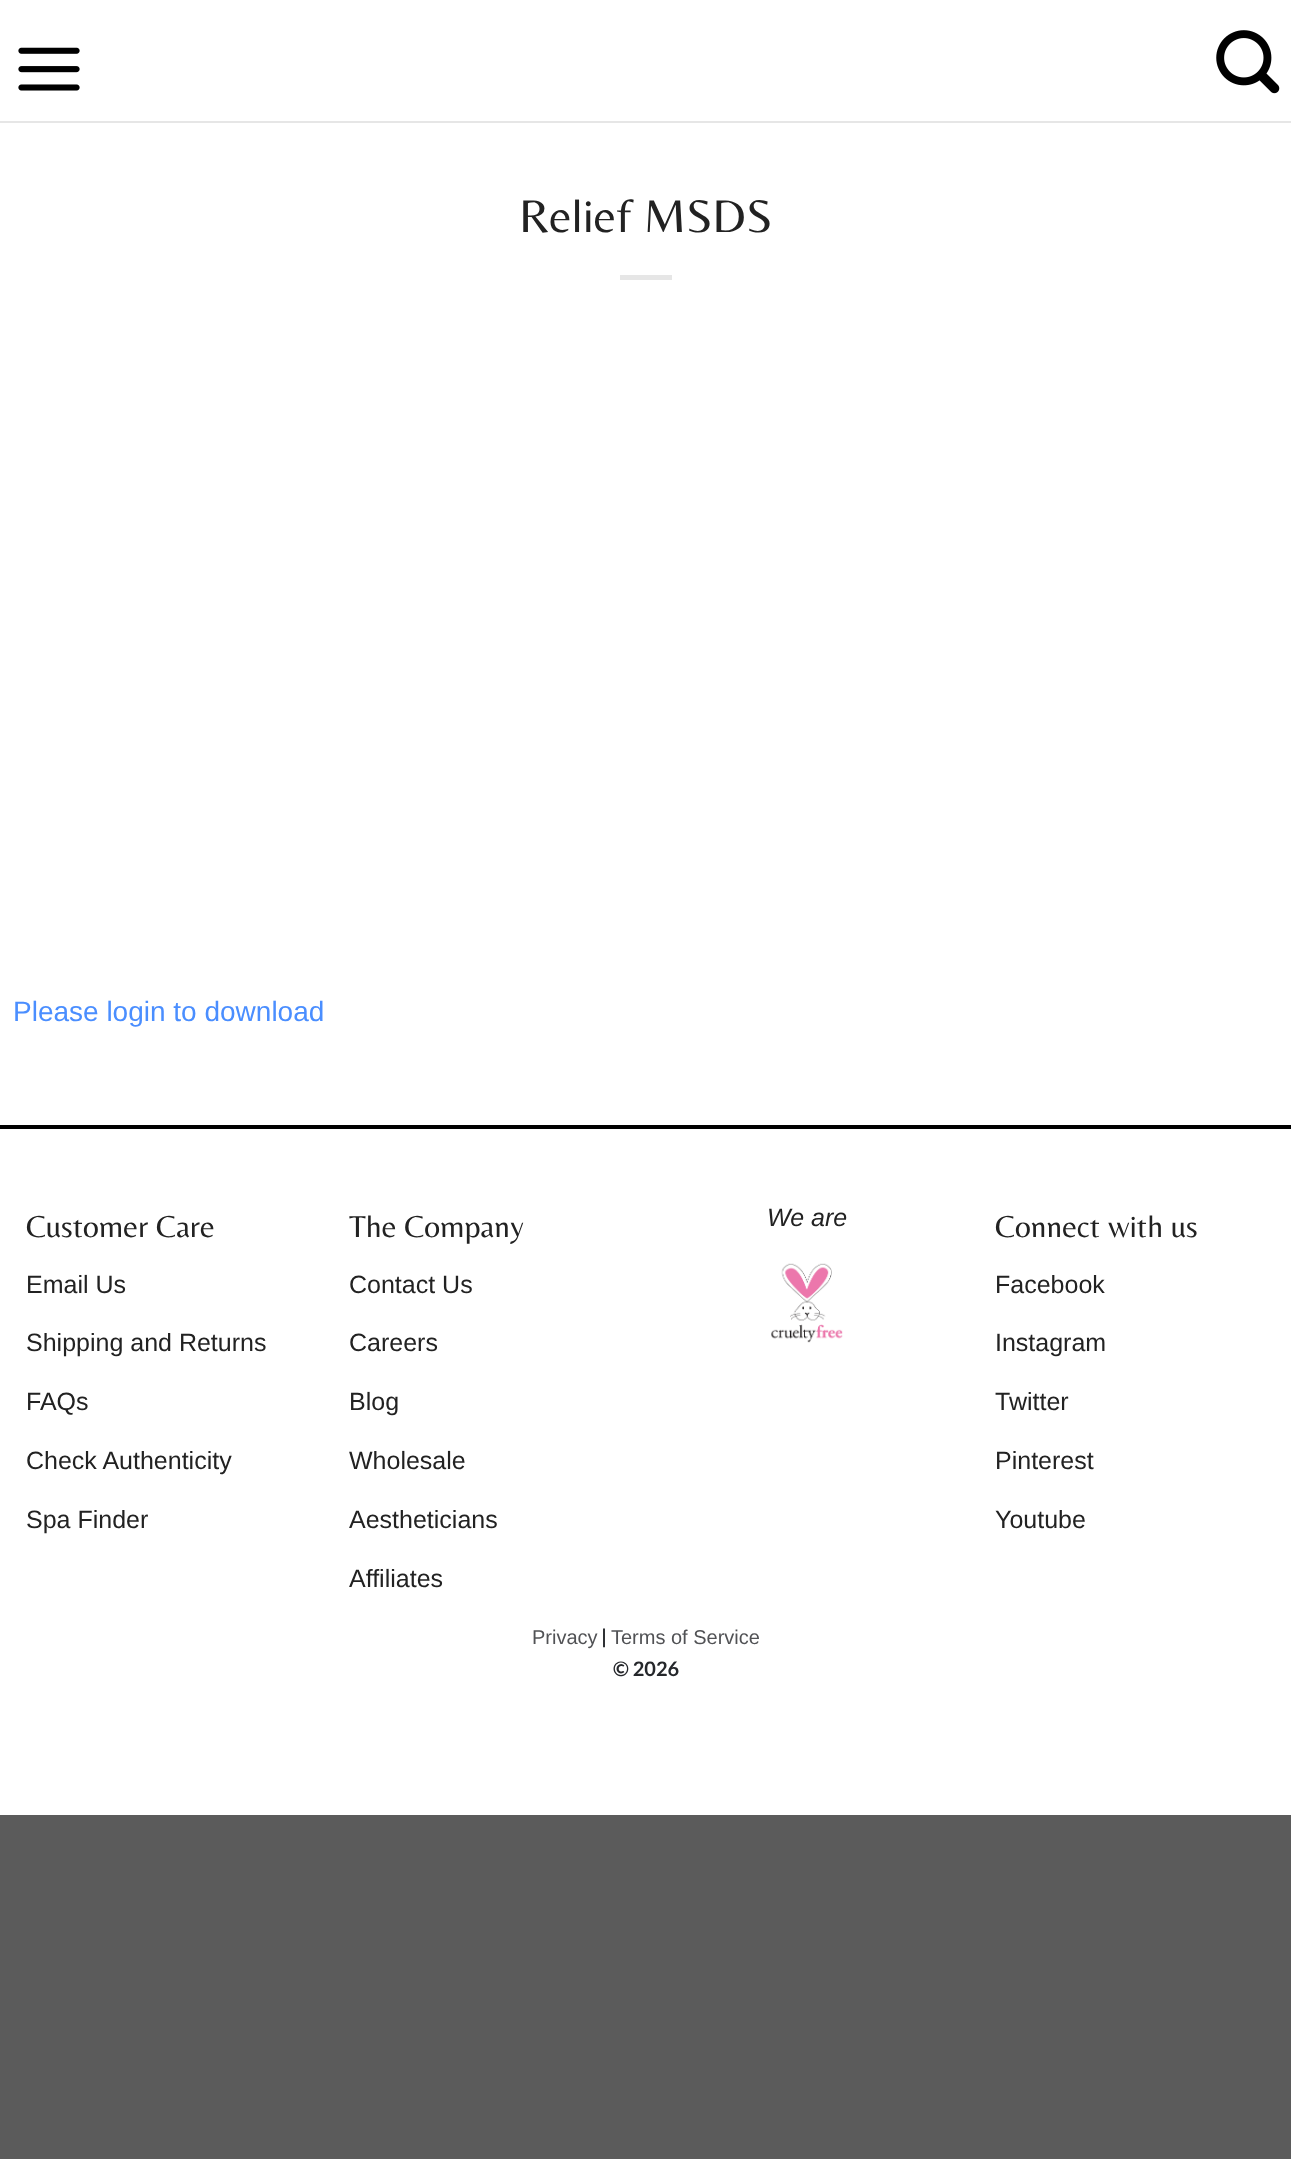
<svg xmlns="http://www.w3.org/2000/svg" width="1291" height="2159">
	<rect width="100%" height="100%" fill="#5B5B5B" />
	<rect x="0" y="0" width="1291" height="1815" fill="#FFFFFF" />
	<rect x="0" y="121" width="1291" height="2" fill="#E6E6E6" />
	<image x="18" y="47" width="62" height="44" href="assets/img1.png" />
	<image x="1216" y="30" width="64" height="64" href="assets/img2.png" />
	<text x="519" y="232" font-family="Belleza" font-size="47.5" fill="#222222">Relief MSDS</text>
	<rect x="620" y="275" width="52" height="5" fill="#E6E6E6" />
	<text x="13" y="1021" font-family="Liberation Sans" font-size="28" fill="#4A8EFF">Please login to download</text>
	<rect x="0" y="1125" width="1291" height="4" fill="#000000" />
	<text x="26" y="1237" font-family="Belleza" font-size="31.5" fill="#222222">Customer Care</text>
	<g font-family="Liberation Sans" font-size="25" fill="#222222">
		<text x="26" y="1293">Email Us</text>
		<text x="26" y="1351">Shipping and Returns</text>
		<text x="26" y="1410">FAQs</text>
		<text x="26" y="1469">Check Authenticity</text>
		<text x="26" y="1528">Spa Finder</text>
	</g>
	<text x="349" y="1237" font-family="Belleza" font-size="31.5" fill="#222222">The Company</text>
	<g font-family="Liberation Sans" font-size="25" fill="#222222">
		<text x="349" y="1293">Contact Us</text>
		<text x="349" y="1351">Careers</text>
		<text x="349" y="1410">Blog</text>
		<text x="349" y="1469">Wholesale</text>
		<text x="349" y="1528">Aestheticians</text>
		<text x="349" y="1587">Affiliates</text>
	</g>
	<text x="767" y="1226" font-family="Liberation Sans" font-size="25" font-style="italic" fill="#222222">We are</text>
	<image x="771" y="1263" width="72" height="80" href="assets/img3.png" />
	<text x="995" y="1237" font-family="Belleza" font-size="31.5" fill="#222222">Connect with us</text>
	<g font-family="Liberation Sans" font-size="25" fill="#222222">
		<text x="995" y="1293">Facebook</text>
		<text x="995" y="1351">Instagram</text>
		<text x="995" y="1410">Twitter</text>
		<text x="995" y="1469">Pinterest</text>
		<text x="995" y="1528">Youtube</text>
	</g>
	<text x="532" y="1644" font-family="Liberation Sans" font-size="20" fill="#515255">Privacy</text>
	<text x="601" y="1644" font-family="Lato" font-size="20" font-weight="700" fill="#25272B">|</text>
	<text x="611" y="1644" font-family="Liberation Sans" font-size="20" fill="#515255">Terms of Service</text>
	<text x="613" y="1676" font-family="Lato" font-size="20" font-weight="700" fill="#25272B">© 2026</text>
</svg>
